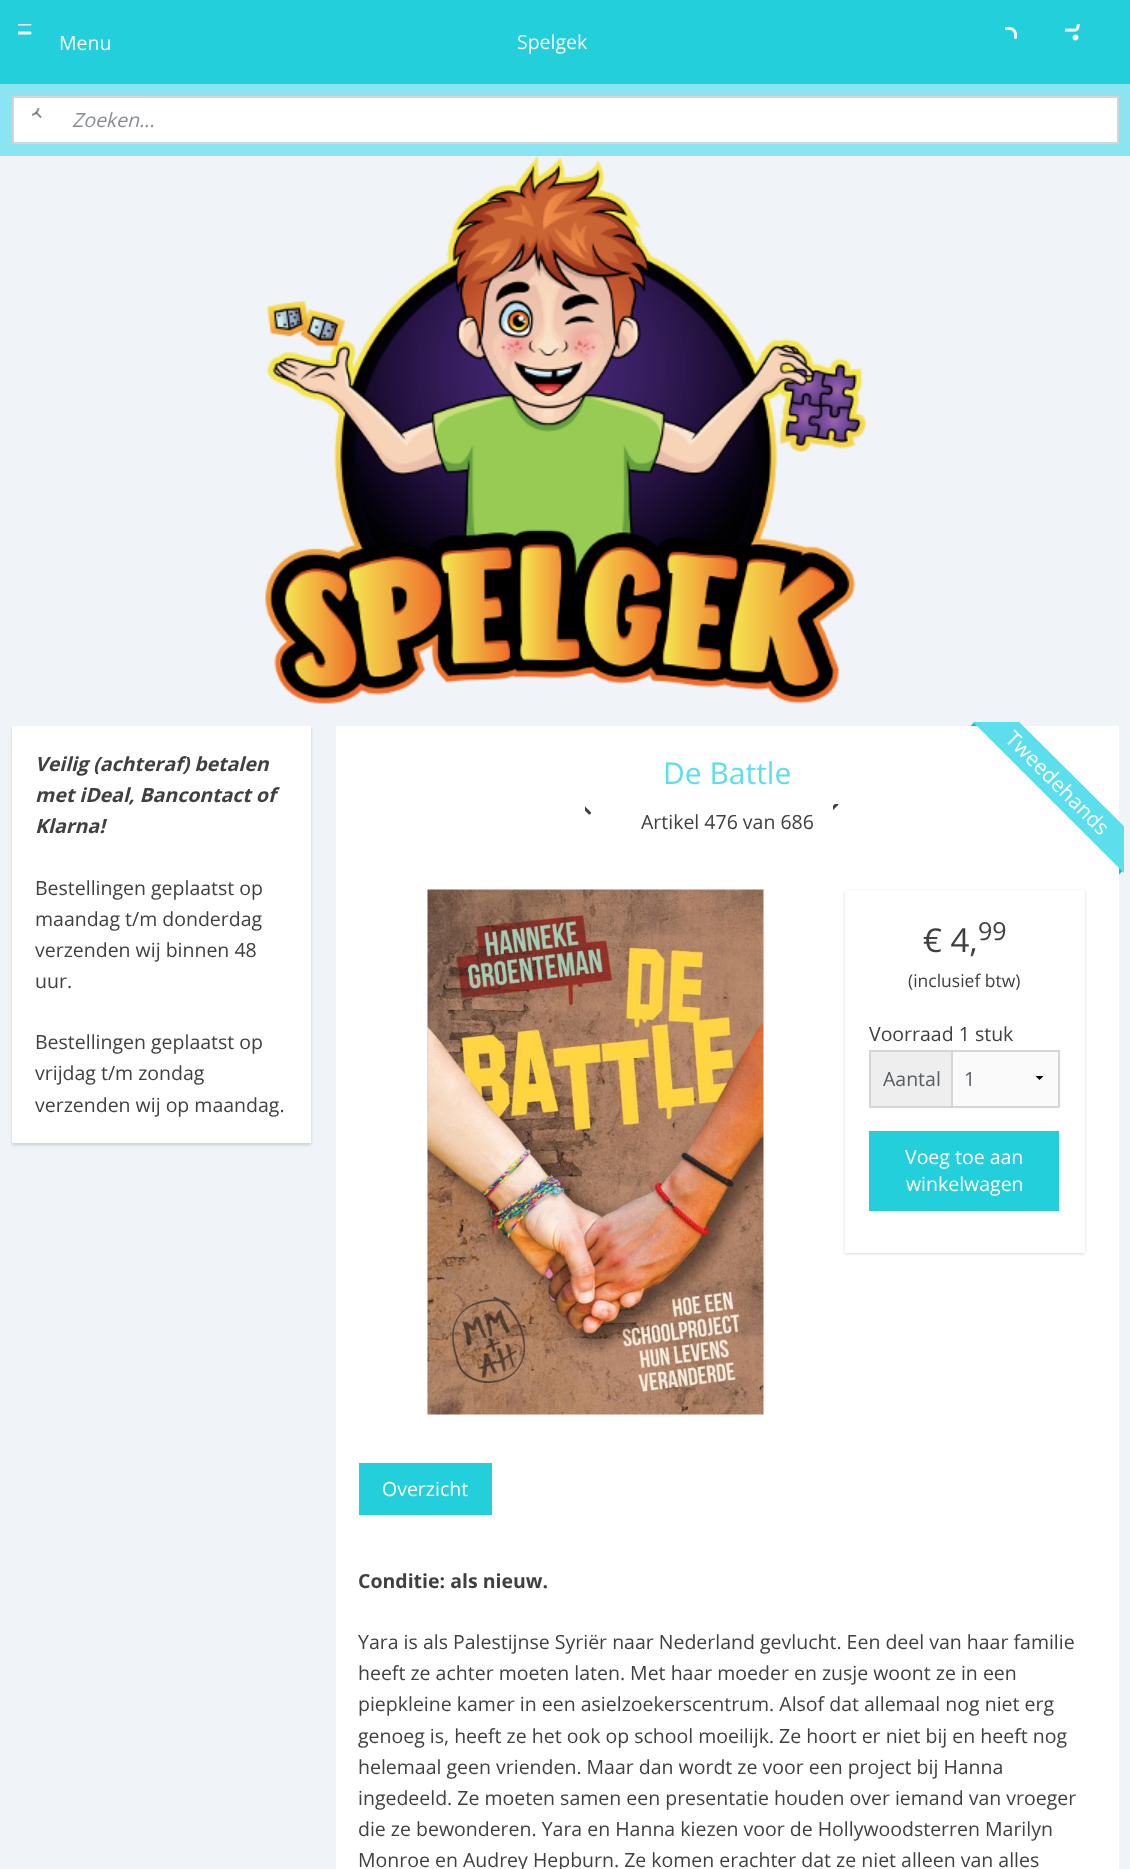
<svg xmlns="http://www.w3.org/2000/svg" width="1130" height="1869">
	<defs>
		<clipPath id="clip1"><rect x="944" y="722" width="180" height="180" /></clipPath>
		<clipPath id="clip2"><rect x="1022" y="1076" width="36" height="5" /></clipPath>
	</defs>
	<rect width="100%" height="100%" fill="#F0F3F7" />
	<rect x="0" y="0" width="1130" height="84" fill="#23CFDB" />
	<image x="18" y="24" width="14" height="11" href="assets/img1.png" />
	<g font-family="Open Sans" font-size="19.5" fill="#FAF8F8">
		<text x="59" y="50">Menu</text>
		<text x="517" y="49">Spelgek</text>
	</g>
	<image x="1005" y="27" width="12" height="12" href="assets/img2.png" />
	<image x="1065" y="24" width="15" height="17" href="assets/img3.png" />
	<rect x="0" y="84" width="1130" height="72" fill="#8AE4F2" />
	<rect x="13" y="97" width="1105" height="46" fill="#FFFFFF" stroke="#D3D5D9" stroke-width="2" />
	<image x="32" y="108" width="10" height="10" href="assets/img4.png" />
	<text x="72" y="127" font-family="Open Sans" font-size="19.5" font-style="italic" fill="#898C91">Zoeken...</text>
	<image x="265" y="156" width="601" height="548" href="assets/img5.png" />
	<rect x="12" y="728" width="299" height="417" fill="#000000" fill-opacity="0.15" filter="blur(1.5px)" />
	<rect x="12" y="726" width="299" height="417" fill="#FFFFFF" />
	<g font-family="Open Sans" font-size="19.5" font-weight="700" font-style="italic" fill="#404040">
		<text x="35" y="771">Veilig (achteraf) betalen</text>
		<text x="35" y="802">met iDeal, Bancontact of</text>
		<text x="35" y="833">Klarna!</text>
	</g>
	<g font-family="Open Sans" font-size="19.5" fill="#404040">
		<text x="35" y="895">Bestellingen geplaatst op</text>
		<text x="35" y="926">maandag t/m donderdag</text>
		<text x="35" y="957">verzenden wij binnen 48</text>
		<text x="35" y="988">uur.</text>
		<text x="35" y="1049">Bestellingen geplaatst op</text>
		<text x="35" y="1080">vrijdag t/m zondag</text>
		<text x="35" y="1112">verzenden wij op maandag.</text>
	</g>
	<rect x="336" y="726" width="783" height="1143" fill="#FFFFFF" />
	<text x="663" y="784" font-family="Open Sans" font-size="30" fill="#5CDFED">De Battle</text>
	<path d="M979.5 726H970.5L975 721.5Z" fill="#17BBCC" />
	<path d="M1119 874.5V865.5L1123.5 870Z" fill="#17BBCC" />
	<g clip-path="url(#clip1)">
		<path d="M989 692L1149 851L1125 874L966 715Z" fill="#5CDFED" />
	</g>
	<text x="1004" y="740" transform="rotate(45 1004 740)" font-family="Open Sans" font-size="21" fill="#FFFFFF">Tweedehands</text>
	<image x="585" y="806" width="6" height="9" href="assets/img6.png" />
	<image x="833" y="804" width="6" height="6" href="assets/img7.png" />
	<text x="641" y="829" font-family="Open Sans" font-size="19.5" fill="#404040">Artikel 476 van 686</text>
	<image x="427" y="889" width="337" height="526" href="assets/img8.png" />
	<rect x="845" y="891" width="240" height="363" fill="#000000" fill-opacity="0.15" filter="blur(1.5px)" />
	<rect x="845" y="890" width="240" height="363" fill="#FFFFFF" />
	<text x="923" y="952" font-family="Open Sans" font-size="33" fill="#404040">€ 4,</text>
	<text x="978" y="940" font-family="Open Sans" font-size="25" fill="#404040">99</text>
	<text x="908" y="987" font-family="Open Sans" font-size="17.5" fill="#404040">(inclusief btw)</text>
	<text x="869" y="1041" font-family="Open Sans" font-size="19.5" fill="#404040">Voorraad 1 stuk</text>
	<rect x="951" y="1050" width="2" height="56" fill="#D3D5D9" />
	<rect x="869" y="1050" width="190" height="2" fill="#D3D5D9" />
	<rect x="1058" y="1050" width="2" height="57" fill="#D3D5D9" />
	<rect x="869" y="1106" width="190" height="2" fill="#D3D5D9" />
	<rect x="869" y="1050" width="2" height="57" fill="#D3D5D9" />
	<rect x="871" y="1052" width="80" height="54" fill="#EEEEEE" />
	<text x="883" y="1086" font-family="Open Sans" font-size="19.5" fill="#575B62">Aantal</text>
	<rect x="953" y="1052" width="105" height="54" fill="#FAFAFA" />
	<g clip-path="url(#clip2)">
		<path d="M1044 1075.5L1039.5 1080L1035 1075.5Z" fill="#000000" />
	</g>
	<text x="964" y="1086" font-family="Open Sans" font-size="19.5" fill="#575B62">1</text>
	<rect x="869" y="1131" width="190" height="80" fill="#23CFDB" />
	<g font-family="Open Sans" font-size="19.5" fill="#FFFFFF">
		<text x="905" y="1164">Voeg toe aan</text>
		<text x="906" y="1191">winkelwagen</text>
	</g>
	<rect x="359" y="1463" width="133" height="52" fill="#23CFDB" />
	<text x="382" y="1496" font-family="Open Sans" font-size="19.5" fill="#FFFFFF">Overzicht</text>
	<text x="358" y="1588" font-family="Open Sans" font-size="19.5" font-weight="700" fill="#404040">Conditie: als nieuw.</text>
	<g font-family="Open Sans" font-size="19.5" fill="#404040">
		<text x="358" y="1649">Yara is als Palestijnse Syriër naar Nederland gevlucht. Een deel van haar familie</text>
		<text x="358" y="1680">heeft ze achter moeten laten. Met haar moeder en zusje woont ze in een</text>
		<text x="358" y="1711">piepkleine kamer in een asielzoekerscentrum. Alsof dat allemaal nog niet erg</text>
		<text x="358" y="1743">genoeg is, heeft ze het ook op school moeilijk. Ze hoort er niet bij en heeft nog</text>
		<text x="358" y="1774">helemaal geen vrienden. Maar dan wordt ze voor een project bij Hanna</text>
		<text x="358" y="1805">ingedeeld. Ze moeten samen een presentatie houden over iemand van vroeger</text>
		<text x="358" y="1836">die ze bewonderen. Yara en Hanna kiezen voor de Hollywoodsterren Marilyn</text>
		<text x="358" y="1867">Monroe en Audrey Hepburn. Ze komen erachter dat ze niet alleen van alles</text>
	</g>
</svg>
